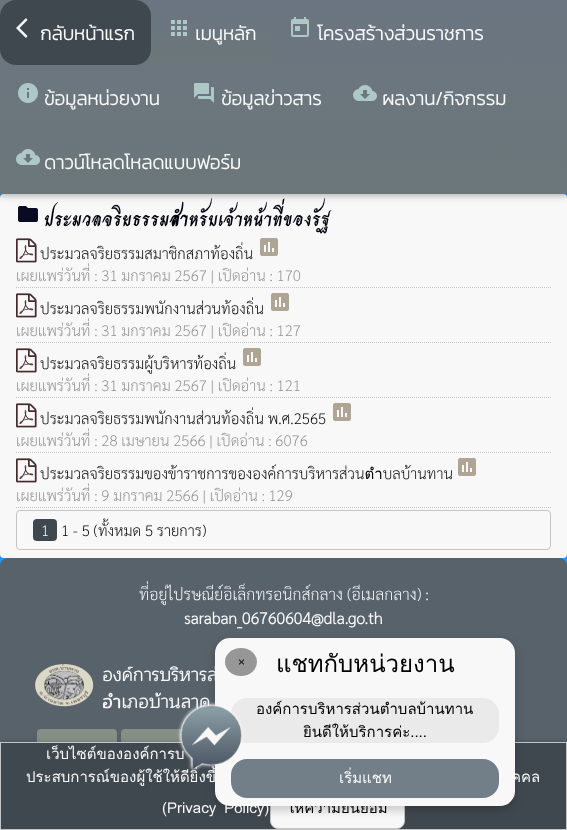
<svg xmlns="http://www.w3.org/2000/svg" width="567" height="830">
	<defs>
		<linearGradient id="g1" gradientUnits="userSpaceOnUse" x1="284" y1="0" x2="284" y2="194"><stop offset="0" stop-color="#6A7581" /><stop offset="1" stop-color="#6C777A" /></linearGradient>
		<linearGradient id="g2" gradientUnits="userSpaceOnUse" x1="212" y1="0" x2="212" y2="65"><stop offset="0" stop-color="#6A7581" /><stop offset="1" stop-color="#6C777A" /></linearGradient>
		<clipPath id="clip1"><rect x="102" y="662" width="433" height="54" /></clipPath>
	</defs>
	<rect width="100%" height="100%" fill="#2196F3" />
	<rect x="0" y="194" width="567" height="364" rx="4" fill="#F8F8F8" />
	<image x="18" y="206" width="20" height="16" href="assets/img7.png" />
	<rect x="0" y="2" width="567" height="194" fill="#000000" fill-opacity="0.12" filter="blur(5px)" />
	<rect x="0" y="2" width="567" height="194" fill="#000000" fill-opacity="0.16" filter="blur(2.5px)" />
	<rect x="0" y="0" width="567" height="194" fill="url(#g1)" />
	<rect x="0" y="0" width="151" height="65" rx="16" fill="#40484F" />
	<path d="M27.5 20L19.5 28L27.5 36L26 38L16 28L26 18Z" fill="#F8F8F8" />
	<text x="40" y="40" font-family="Kanit" font-size="19" font-weight="700" fill="#F8F8F8">กลับหน้าแรก</text>
	<rect x="151" y="33" width="121" height="32" fill="url(#g2)" />
	<image x="171" y="20" width="16" height="16" href="assets/img1.png" />
	<text x="195" y="40" font-family="Kanit" font-size="19" font-weight="700" fill="#F8F8F8">เมนูหลัก</text>
	<image x="291" y="17" width="18" height="20" href="assets/img2.png" />
	<text x="317" y="40" font-family="Kanit" font-size="19" font-weight="700" fill="#F8F8F8">โครงสร้างส่วนราชการ</text>
	<image x="18" y="83" width="20" height="20" href="assets/img3.png" />
	<text x="44" y="105" font-family="Kanit" font-size="19" font-weight="700" fill="#F8F8F8">ข้อมูลหน่วยงาน</text>
	<image x="194" y="83" width="20" height="20" href="assets/img4.png" />
	<text x="221" y="105" font-family="Kanit" font-size="19" font-weight="700" fill="#F8F8F8">ข้อมูลข่าวสาร</text>
	<image x="353" y="85" width="24" height="16" href="assets/img5.png" />
	<text x="382" y="105" font-family="Kanit" font-size="19" font-weight="700" fill="#F8F8F8">ผลงาน/กิจกรรม</text>
	<image x="16" y="149" width="24" height="16" href="assets/img6.png" />
	<text x="44" y="169" font-family="Kanit" font-size="19" font-weight="700" fill="#F8F8F8">ดาวน์โหลดโหลดแบบฟอร์ม</text>
	<text x="44" y="226" font-family="Charm" font-size="20" font-weight="700" fill="#02020F">ประมวลจริยธรรมสำหรับเจ้าหน้าที่ของรัฐ</text>
	<image x="16" y="238" width="21" height="25" href="assets/img8.png" />
	<text x="40" y="259" font-family="Sarabun" font-size="15" font-weight="200" fill="#000000">ประมวลจริยธรรมสมาชิกสภาท้องถิ่น</text>
	<image x="260" y="238" width="18" height="18" href="assets/img9.png" />
	<path d="M16 287.5H551" fill="none" stroke="#C5C5C5" stroke-dasharray="1 1" />
	<text x="16" y="281" font-family="Sarabun" font-size="15" font-weight="200" fill="#929292">เผยแพร่วันที่ : 31 มกราคม 2567 | เปิดอ่าน : 170</text>
	<image x="16" y="293" width="21" height="25" href="assets/img8.png" />
	<text x="40" y="314" font-family="Sarabun" font-size="15" font-weight="200" fill="#000000">ประมวลจริยธรรมพนักงานส่วนท้องถิ่น</text>
	<image x="271" y="293" width="18" height="18" href="assets/img9.png" />
	<path d="M16 342.5H551" fill="none" stroke="#C5C5C5" stroke-dasharray="1 1" />
	<text x="16" y="336" font-family="Sarabun" font-size="15" font-weight="200" fill="#929292">เผยแพร่วันที่ : 31 มกราคม 2567 | เปิดอ่าน : 127</text>
	<image x="16" y="348" width="21" height="25" href="assets/img8.png" />
	<text x="40" y="369" font-family="Sarabun" font-size="15" font-weight="200" fill="#000000">ประมวลจริยธรรมผู้บริหารท้องถิ่น</text>
	<image x="243" y="348" width="18" height="18" href="assets/img9.png" />
	<path d="M16 397.5H551" fill="none" stroke="#C5C5C5" stroke-dasharray="1 1" />
	<text x="16" y="391" font-family="Sarabun" font-size="15" font-weight="200" fill="#929292">เผยแพร่วันที่ : 31 มกราคม 2567 | เปิดอ่าน : 121</text>
	<image x="16" y="403" width="21" height="25" href="assets/img8.png" />
	<text x="40" y="424" font-family="Sarabun" font-size="15" font-weight="200" fill="#000000">ประมวลจริยธรรมพนักงานส่วนท้องถิ่น พ.ศ.2565</text>
	<image x="333" y="403" width="18" height="18" href="assets/img9.png" />
	<path d="M16 452.5H551" fill="none" stroke="#C5C5C5" stroke-dasharray="1 1" />
	<text x="16" y="446" font-family="Sarabun" font-size="15" font-weight="200" fill="#929292">เผยแพร่วันที่ : 28 เมษายน 2566 | เปิดอ่าน : 6076</text>
	<image x="16" y="458" width="21" height="25" href="assets/img8.png" />
	<text x="40" y="479" font-family="Sarabun" font-size="15" font-weight="200" fill="#000000">ประมวลจริยธรรมของข้าราชการขององค์การบริหารส่วนตำบลบ้านทาน</text>
	<image x="458" y="458" width="18" height="18" href="assets/img9.png" />
	<path d="M16 507.5H551" fill="none" stroke="#C5C5C5" stroke-dasharray="1 1" />
	<text x="16" y="501" font-family="Sarabun" font-size="15" font-weight="200" fill="#929292">เผยแพร่วันที่ : 9 มกราคม 2566 | เปิดอ่าน : 129</text>
	<rect x="16.5" y="510.5" width="534" height="39" rx="3.5" fill="none" stroke="#C5C5C5" />
	<rect x="33" y="519" width="24" height="22" rx="4" fill="#40484F" />
	<text x="41" y="536" font-family="Sarabun" font-size="15" font-weight="200" fill="#F8F8F8">1</text>
	<text x="61" y="536" font-family="Sarabun" font-size="15" font-weight="200" fill="#000000">1 - 5 (ทั้งหมด 5 รายการ)</text>
	<rect x="0" y="558" width="567" height="219" rx="8" fill="#57626B" />
	<text x="139" y="600" font-family="Sarabun" font-size="16" font-weight="200" fill="#F8F8F8">ที่อยู่ไปรษณีย์อิเล็กทรอนิกส์กลาง (อีเมลกลาง) :</text>
	<text x="184" y="624" font-family="Sarabun" font-size="16" font-weight="700" fill="#F8F8F8">saraban_06760604@dla.go.th</text>
	<image x="34" y="663" width="60" height="44" href="assets/img10.png" />
	<text x="102" y="681" font-family="Maitree" font-size="18" font-weight="700" fill="#F8F8F8">องค์การบริหารส่</text>
	<g clip-path="url(#clip1)">
		<text x="102" y="708" font-family="Maitree" font-size="18" font-weight="700" fill="#F8F8F8">อำเภอบ้านลาด</text>
	</g>
	<rect x="37" y="729" width="80" height="21" rx="4" fill="#858F86" />
	<rect x="121" y="729" width="84" height="21" rx="4" fill="#858F86" />
	<rect x="0" y="744" width="567" height="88" fill="#000000" fill-opacity="0.12" filter="blur(5px)" />
	<rect x="0" y="744" width="567" height="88" fill="#000000" fill-opacity="0.16" filter="blur(2.5px)" />
	<rect x="0.5" y="742.5" width="566" height="87" fill="#40484F" stroke="#C5C5C5" />
	<rect x="270.5" y="788.5" width="134" height="40" rx="7.5" fill="#F8F8F8" stroke="#C5C5C5" />
	<rect x="215" y="642" width="300" height="168" rx="15" fill="#000000" fill-opacity="0.2" filter="blur(5px)" />
	<text x="287" y="813" font-family="Loma" font-size="15" fill="#000000">ให้ความยินยอม</text>
	<rect x="215" y="638" width="300" height="168" rx="15" fill="#F8F8F8" />
	<ellipse cx="241" cy="662" rx="16" ry="14" fill="#979797" />
	<text x="238" y="666" font-family="Liberation Sans" font-size="12" fill="#000000">×</text>
	<text x="276" y="672" font-family="Loma" font-size="24" fill="#000000">แชทกับหน่วยงาน</text>
	<rect x="231" y="698" width="268" height="45" rx="16" fill="#EAEAEA" />
	<g font-family="Loma" font-size="15" fill="#000000">
		<text x="256" y="714">องค์การบริหารส่วนตำบลบ้านทาน</text>
		<text x="303" y="737">ยินดีให้บริการค่ะ....</text>
	</g>
	<rect x="231" y="759" width="268" height="39" rx="16" fill="#737F88" />
	<g font-family="Loma" font-size="15" fill="#F8F8F8">
		<text x="46" y="759" word-spacing="-1">เว็บไซต์ขององค์การบ</text>
		<text x="26" y="782" word-spacing="-1">ประสบการณ์ของผู้ใช้ให้ดียิ่งขึ้</text>
	</g>
	<image x="177" y="701" width="66" height="70" href="assets/img11.png" />
	<g font-family="Loma" font-size="15" fill="#F8F8F8">
		<text x="339" y="783">เริ่มแชท</text>
		<text x="511" y="782" word-spacing="-1">คคล</text>
		<text x="162" y="813" word-spacing="3">(Privacy Policy)</text>
	</g>
</svg>
